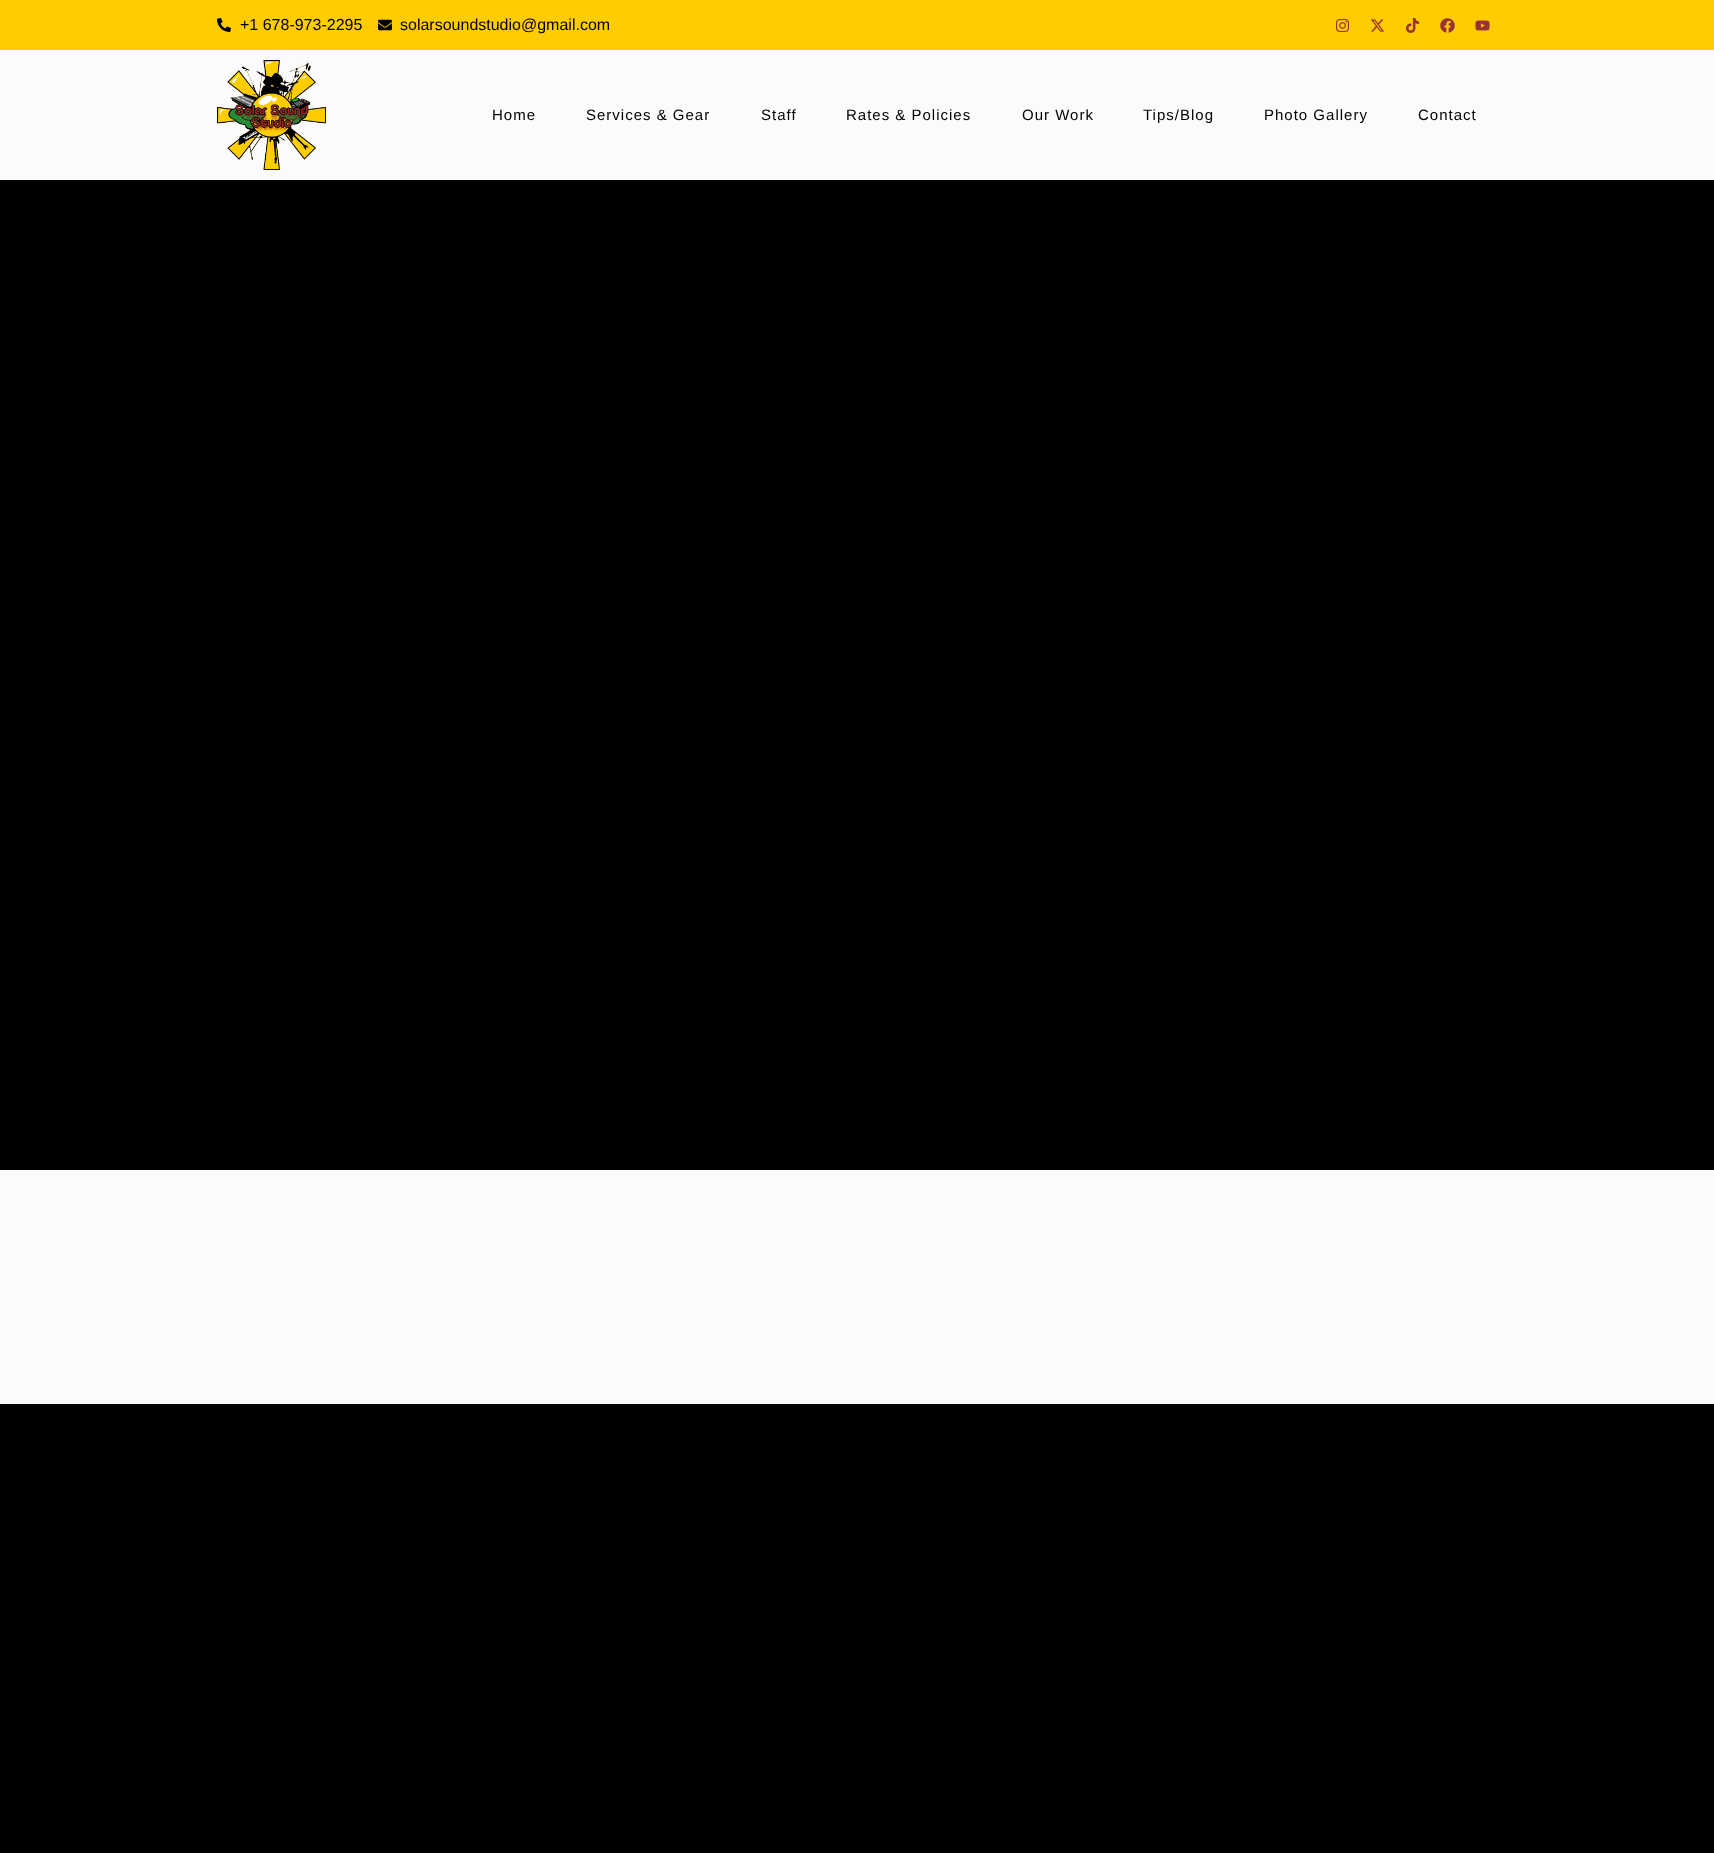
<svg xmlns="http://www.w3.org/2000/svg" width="1714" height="1853">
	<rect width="100%" height="100%" fill="#FBFBFB" />
	<rect x="0" y="0" width="1714" height="50" fill="#FFCC00" />
	<image x="217" y="18" width="14" height="14" href="assets/img1.png" />
	<text x="240" y="30" font-family="Liberation Sans" font-size="16" fill="#000000">+1 678-973-2295</text>
	<image x="378" y="19" width="14" height="12" href="assets/img2.png" />
	<text x="400" y="30" font-family="Liberation Sans" font-size="16" fill="#000000">solarsoundstudio@gmail.com</text>
	<image x="1336" y="19" width="13" height="13" href="assets/img3.png" />
	<image x="1370" y="19" width="15" height="13" href="assets/img4.png" />
	<image x="1406" y="18" width="14" height="15" href="assets/img5.png" />
	<image x="1440" y="18" width="15" height="15" href="assets/img6.png" />
	<image x="1475" y="20" width="15" height="11" href="assets/img7.png" />
	<image x="217" y="60" width="109" height="110" href="assets/img8.png" />
	<g font-family="Liberation Sans" font-size="15" letter-spacing="1" fill="#000000">
		<text x="492" y="120">Home</text>
		<text x="586" y="120">Services &amp; Gear</text>
		<text x="761" y="120">Staff</text>
		<text x="846" y="120">Rates &amp; Policies</text>
		<text x="1022" y="120">Our Work</text>
		<text x="1143" y="120">Tips/Blog</text>
		<text x="1264" y="120">Photo Gallery</text>
		<text x="1418" y="120">Contact</text>
	</g>
	<rect x="0" y="180" width="1714" height="990" fill="#010101" />
	<rect x="0" y="1404" width="1714" height="449" fill="#010101" />
</svg>
